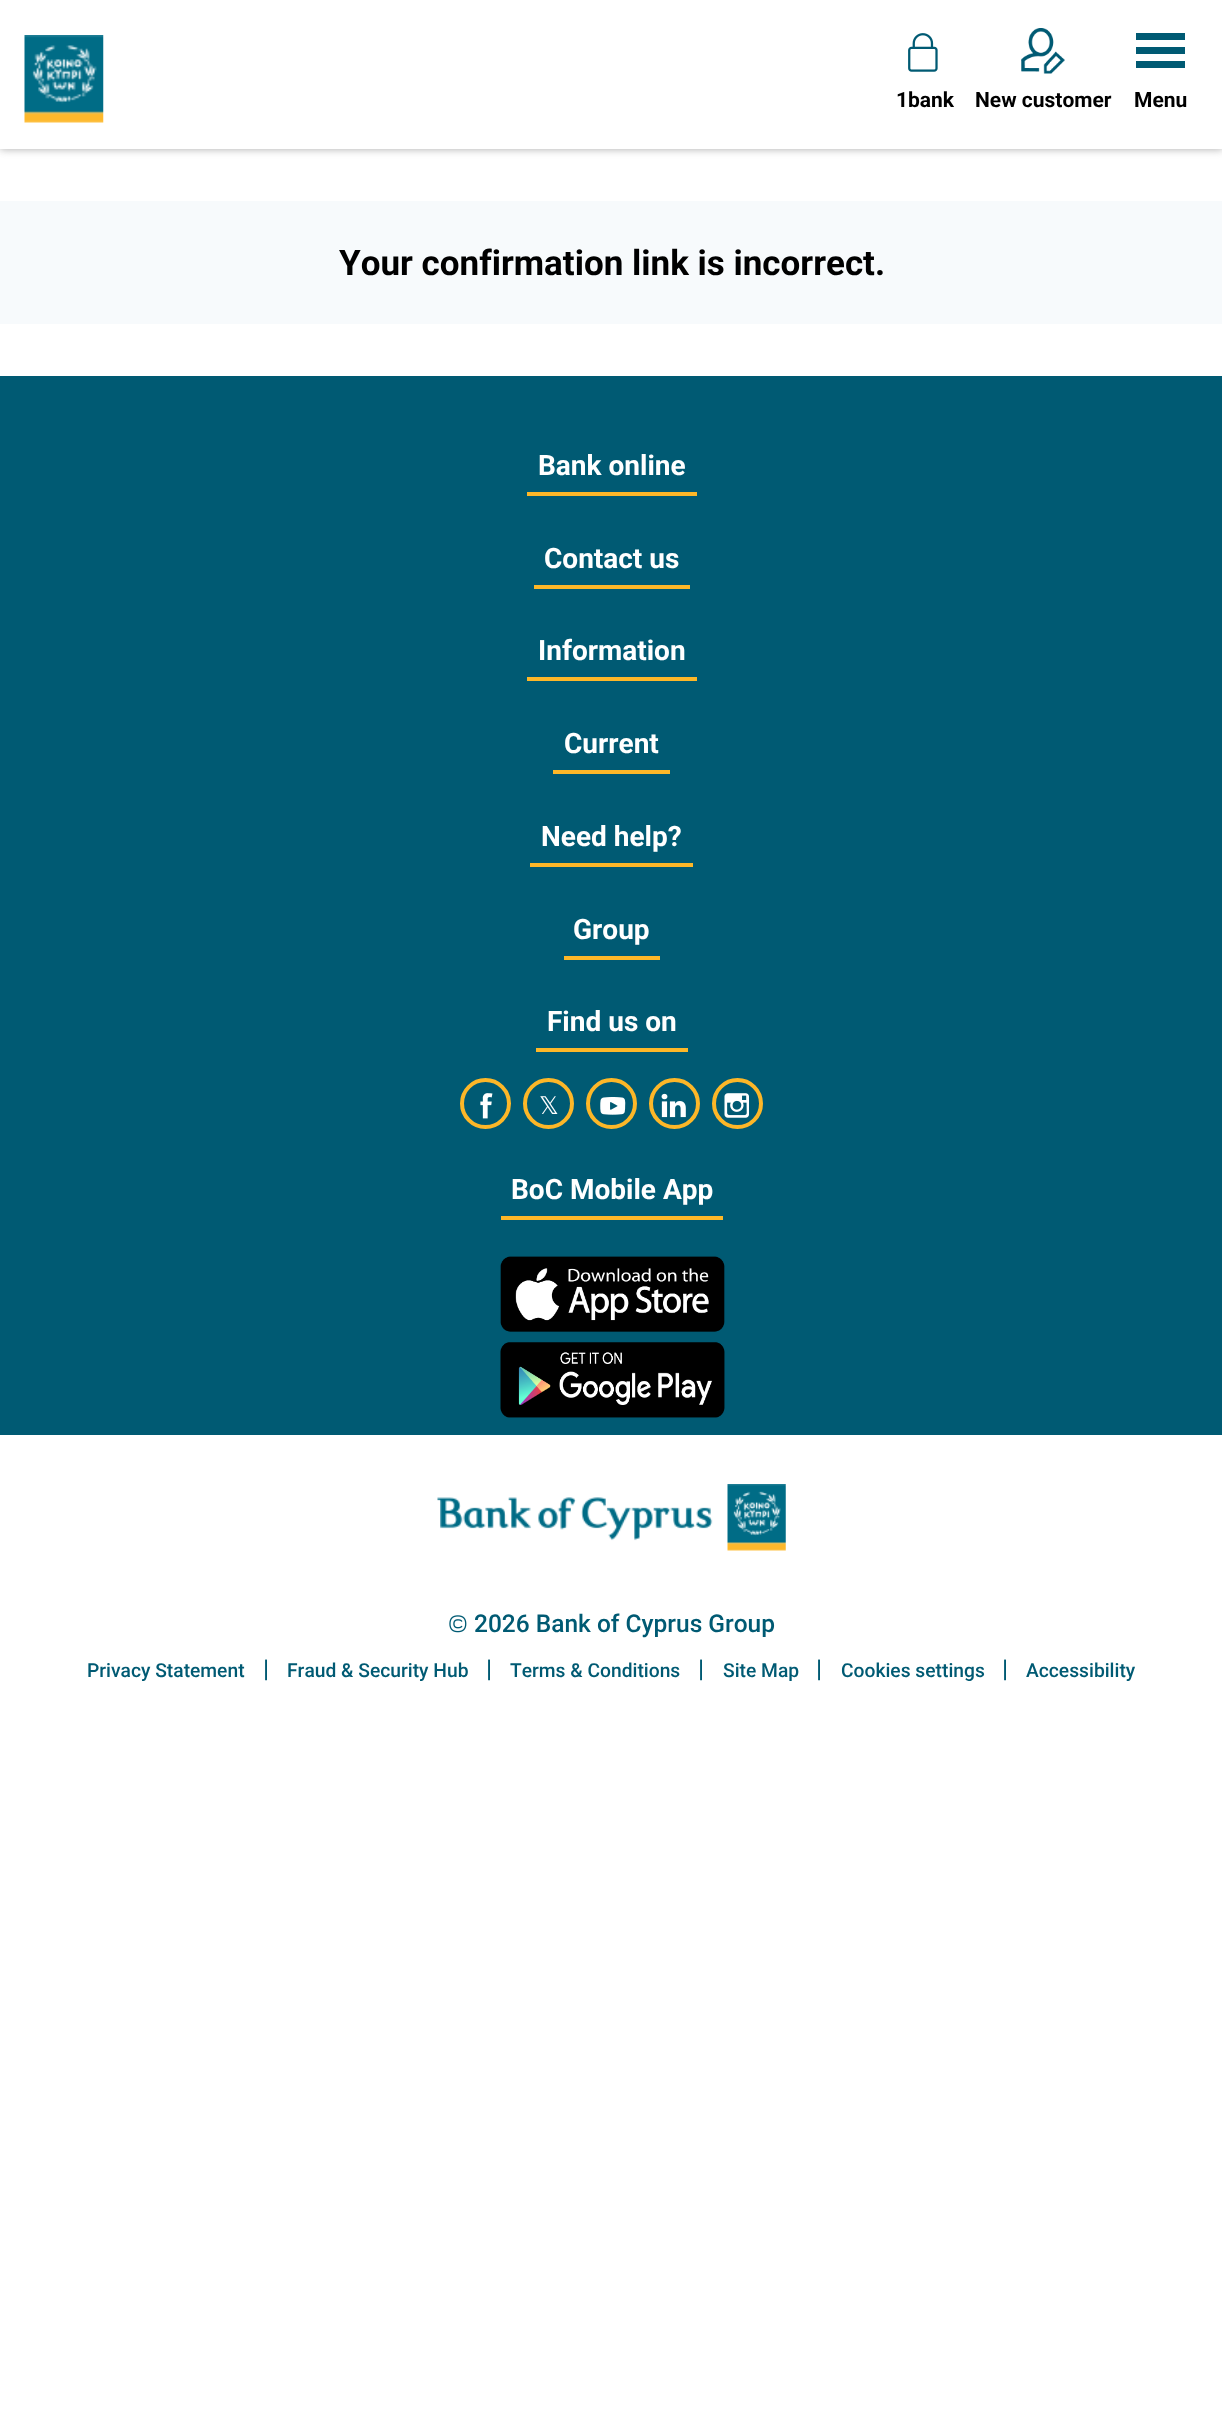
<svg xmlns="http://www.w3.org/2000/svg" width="1222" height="2435">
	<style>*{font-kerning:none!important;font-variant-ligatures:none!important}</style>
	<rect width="100%" height="100%" fill="#FFFFFF" />
	<rect x="0" y="0" width="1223" height="149" fill="#AAAAAA" filter="blur(4.5px)" />
	<rect x="0" y="0" width="1222" height="149" fill="#FFFFFF" />
	<image x="24" y="35" width="80" height="88" href="assets/img1.png" />
	<image x="908" y="33" width="30" height="39" href="assets/img2.png" />
	<text x="896" y="107" font-family="Roboto" font-size="21" font-weight="700" fill="#000000">1bank</text>
	<image x="1021" y="28" width="44" height="46" href="assets/img3.png" />
	<text x="975" y="107" font-family="Roboto" font-size="21" font-weight="700" fill="#000000">New customer</text>
	<rect x="1136" y="33" width="49" height="7" fill="#005A73" />
	<rect x="1136" y="47" width="49" height="7" fill="#005A73" />
	<rect x="1136" y="61" width="49" height="7" fill="#005A73" />
	<text x="1134" y="107" font-family="Roboto" font-size="21" font-weight="700" fill="#000000">Menu</text>
	<rect x="0" y="201" width="1222" height="123" fill="#F7FAFC" />
	<text x="339" y="275" font-family="Roboto" font-size="35" font-weight="700" fill="#000000">Your confirmation link is incorrect.</text>
	<rect x="0" y="376" width="1222" height="1059" fill="#005A73" />
	<rect x="527" y="492" width="170" height="4" fill="#FDB728" />
	<text x="538" y="475" font-family="Roboto" font-size="28" font-weight="700" fill="#FFFFFF">Bank online</text>
	<rect x="534" y="585" width="156" height="4" fill="#FDB728" />
	<text x="544" y="568" font-family="Roboto" font-size="28" font-weight="700" fill="#FFFFFF">Contact us</text>
	<rect x="527" y="677" width="170" height="4" fill="#FDB728" />
	<text x="538" y="660" font-family="Roboto" font-size="28" font-weight="700" fill="#FFFFFF">Information</text>
	<rect x="553" y="770" width="117" height="4" fill="#FDB728" />
	<text x="564" y="753" font-family="Roboto" font-size="28" font-weight="700" fill="#FFFFFF">Current</text>
	<rect x="530" y="863" width="163" height="4" fill="#FDB728" />
	<text x="541" y="846" font-family="Roboto" font-size="28" font-weight="700" fill="#FFFFFF">Need help?</text>
	<rect x="564" y="956" width="96" height="4" fill="#FDB728" />
	<text x="573" y="939" font-family="Roboto" font-size="28" font-weight="700" fill="#FFFFFF">Group</text>
	<rect x="536" y="1048" width="152" height="4" fill="#FDB728" />
	<text x="547" y="1031" font-family="Roboto" font-size="28" font-weight="700" fill="#FFFFFF">Find us on</text>
	<circle cx="485.5" cy="1103.5" r="23.5" fill="none" stroke="#FDB728" stroke-width="4" />
	<image x="480" y="1093" width="13" height="26" href="assets/img4.png" />
	<circle cx="548.5" cy="1103.5" r="23.5" fill="none" stroke="#FDB728" stroke-width="4" />
	<text x="539" y="1114" font-family="DejaVu Sans" font-size="24.5" fill="#FFFFFF">𝕏</text>
	<circle cx="611.5" cy="1103.5" r="23.5" fill="none" stroke="#FDB728" stroke-width="4" />
	<image x="600" y="1097" width="26" height="18" href="assets/img5.png" />
	<circle cx="674.5" cy="1103.5" r="23.5" fill="none" stroke="#FDB728" stroke-width="4" />
	<image x="661" y="1093" width="25" height="25" href="assets/img6.png" />
	<circle cx="737.5" cy="1103.5" r="23.5" fill="none" stroke="#FDB728" stroke-width="4" />
	<image x="724" y="1093" width="25" height="25" href="assets/img7.png" />
	<rect x="501" y="1216" width="222" height="4" fill="#FDB728" />
	<text x="511" y="1199" font-family="Roboto" font-size="28" font-weight="700" fill="#FFFFFF">BoC Mobile App</text>
	<image x="500" y="1256" width="225" height="76" href="assets/img8.png" />
	<image x="500" y="1342" width="225" height="76" href="assets/img9.png" />
	<image x="437" y="1484" width="349" height="67" href="assets/img10.png" />
	<image x="449" y="1615" width="18" height="18" href="assets/img11.png" />
	<text x="474" y="1632" font-family="Roboto" font-size="24.5" font-weight="500" fill="#005A73">2026 Bank of Cyprus Group</text>
	<text x="87" y="1677" font-family="Roboto" font-size="19.25" font-weight="500" fill="#005A73">Privacy Statement</text>
	<text x="263" y="1677" font-family="Roboto" font-size="24.5" font-weight="500" fill="#005A73">|</text>
	<text x="287" y="1677" font-family="Roboto" font-size="19.25" font-weight="500" fill="#005A73">Fraud &amp; Security Hub</text>
	<text x="486" y="1677" font-family="Roboto" font-size="24.5" font-weight="500" fill="#005A73">|</text>
	<text x="510" y="1677" font-family="Roboto" font-size="19.25" font-weight="500" fill="#005A73">Terms &amp; Conditions</text>
	<text x="698" y="1677" font-family="Roboto" font-size="24.5" font-weight="500" fill="#005A73">|</text>
	<text x="723" y="1677" font-family="Roboto" font-size="19.25" font-weight="500" fill="#005A73">Site Map</text>
	<text x="816" y="1677" font-family="Roboto" font-size="24.5" font-weight="500" fill="#005A73">|</text>
	<text x="841" y="1677" font-family="Roboto" font-size="19.25" font-weight="500" fill="#005A73">Cookies settings</text>
	<text x="1002" y="1677" font-family="Roboto" font-size="24.5" font-weight="500" fill="#005A73">|</text>
	<text x="1026" y="1677" font-family="Roboto" font-size="19.25" font-weight="500" fill="#005A73">Accessibility</text>
</svg>
